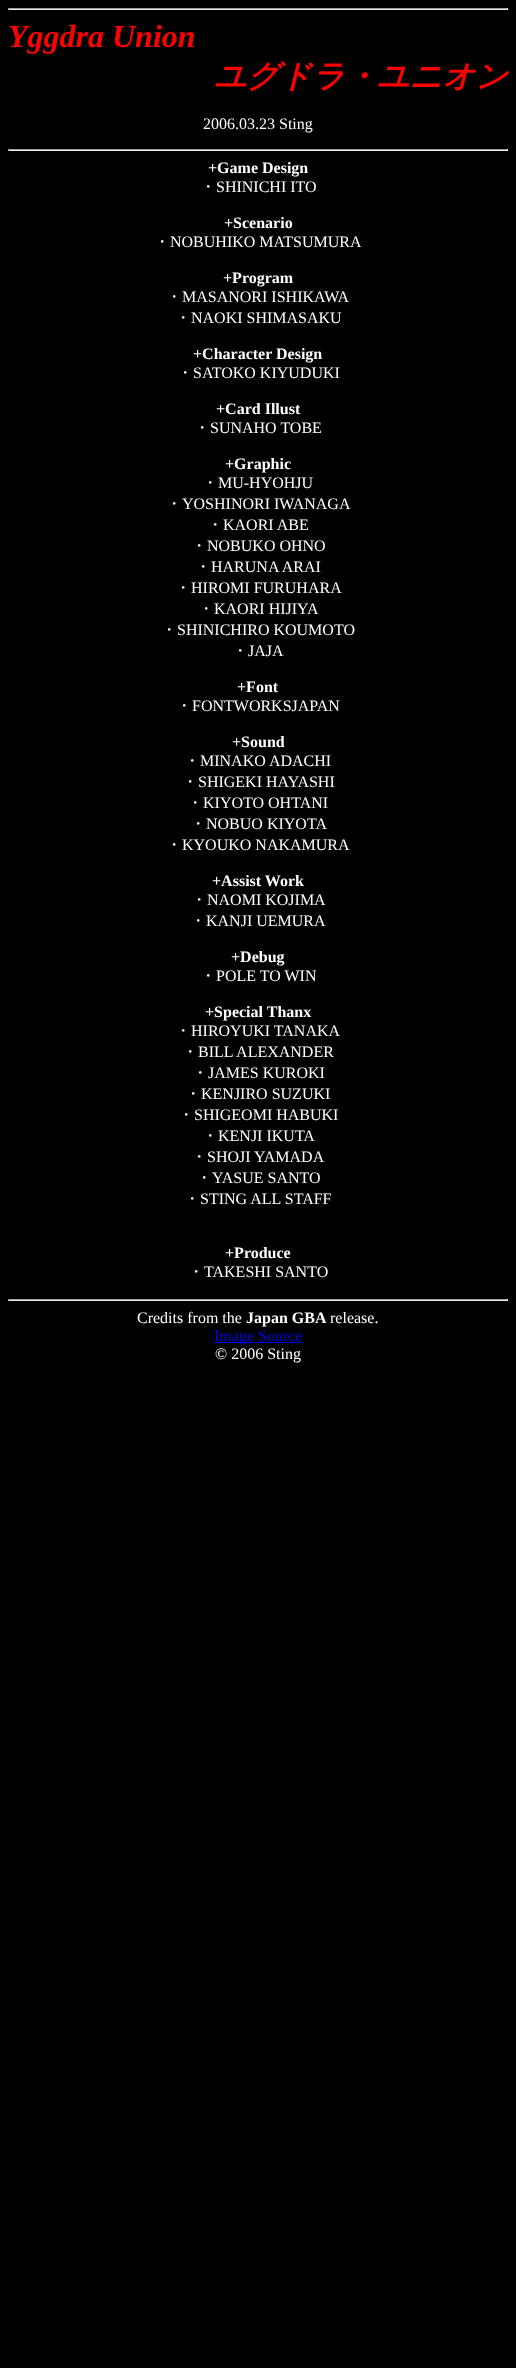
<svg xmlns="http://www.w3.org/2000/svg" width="516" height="2368">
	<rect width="100%" height="100%" fill="#000000" />
	<rect x="8" y="8" width="500" height="1" fill="#9F9F9F" />
	<rect x="507" y="8" width="1" height="2" fill="#EEEEEE" />
	<rect x="8" y="9" width="500" height="1" fill="#EEEEEE" />
	<rect x="8" y="8" width="1" height="2" fill="#9F9F9F" />
	<text x="8" y="47" font-family="Liberation Serif" font-size="32" font-weight="700" font-style="italic" fill="#FF0000">Yggdra Union</text>
	<text x="214" y="87" font-family="WenQuanYi Zen Hei" font-size="32" font-weight="700" font-style="italic" fill="#FF0000">ユグドラ・ユニオン</text>
	<text x="203" y="129" font-family="Liberation Serif" font-size="16" fill="#FFFFFF">2006.03.23 Sting</text>
	<rect x="8" y="149" width="500" height="1" fill="#9F9F9F" />
	<rect x="507" y="149" width="1" height="2" fill="#EEEEEE" />
	<rect x="8" y="150" width="500" height="1" fill="#EEEEEE" />
	<rect x="8" y="149" width="1" height="2" fill="#9F9F9F" />
	<text x="208" y="173" font-family="Liberation Serif" font-size="16" font-weight="700" fill="#FFFFFF">+Game Design</text>
	<text x="200" y="192" font-family="WenQuanYi Zen Hei" font-size="16" font-weight="500" fill="#FFFFFF">・</text>
	<text x="216" y="192" font-family="Liberation Serif" font-size="16" fill="#FFFFFF">SHINICHI ITO</text>
	<text x="224" y="228" font-family="Liberation Serif" font-size="16" font-weight="700" fill="#FFFFFF">+Scenario</text>
	<text x="154" y="247" font-family="WenQuanYi Zen Hei" font-size="16" font-weight="500" fill="#FFFFFF">・</text>
	<text x="170" y="247" font-family="Liberation Serif" font-size="16" fill="#FFFFFF">NOBUHIKO MATSUMURA</text>
	<text x="223" y="283" font-family="Liberation Serif" font-size="16" font-weight="700" fill="#FFFFFF">+Program</text>
	<text x="166" y="302" font-family="WenQuanYi Zen Hei" font-size="16" font-weight="500" fill="#FFFFFF">・</text>
	<text x="182" y="302" font-family="Liberation Serif" font-size="16" fill="#FFFFFF">MASANORI ISHIKAWA</text>
	<text x="175" y="323" font-family="WenQuanYi Zen Hei" font-size="16" font-weight="500" fill="#FFFFFF">・</text>
	<text x="191" y="323" font-family="Liberation Serif" font-size="16" fill="#FFFFFF">NAOKI SHIMASAKU</text>
	<text x="193" y="359" font-family="Liberation Serif" font-size="16" font-weight="700" fill="#FFFFFF">+Character Design</text>
	<text x="177" y="378" font-family="WenQuanYi Zen Hei" font-size="16" font-weight="500" fill="#FFFFFF">・</text>
	<text x="193" y="378" font-family="Liberation Serif" font-size="16" fill="#FFFFFF">SATOKO KIYUDUKI</text>
	<text x="216" y="414" font-family="Liberation Serif" font-size="16" font-weight="700" fill="#FFFFFF">+Card Illust</text>
	<text x="194" y="433" font-family="WenQuanYi Zen Hei" font-size="16" font-weight="500" fill="#FFFFFF">・</text>
	<text x="210" y="433" font-family="Liberation Serif" font-size="16" fill="#FFFFFF">SUNAHO TOBE</text>
	<text x="225" y="469" font-family="Liberation Serif" font-size="16" font-weight="700" fill="#FFFFFF">+Graphic</text>
	<text x="202" y="488" font-family="WenQuanYi Zen Hei" font-size="16" font-weight="500" fill="#FFFFFF">・</text>
	<text x="218" y="488" font-family="Liberation Serif" font-size="16" fill="#FFFFFF">MU-HYOHJU</text>
	<text x="166" y="509" font-family="WenQuanYi Zen Hei" font-size="16" font-weight="500" fill="#FFFFFF">・</text>
	<text x="182" y="509" font-family="Liberation Serif" font-size="16" fill="#FFFFFF">YOSHINORI IWANAGA</text>
	<text x="207" y="530" font-family="WenQuanYi Zen Hei" font-size="16" font-weight="500" fill="#FFFFFF">・</text>
	<text x="223" y="530" font-family="Liberation Serif" font-size="16" fill="#FFFFFF">KAORI ABE</text>
	<text x="191" y="551" font-family="WenQuanYi Zen Hei" font-size="16" font-weight="500" fill="#FFFFFF">・</text>
	<text x="207" y="551" font-family="Liberation Serif" font-size="16" fill="#FFFFFF">NOBUKO OHNO</text>
	<text x="195" y="572" font-family="WenQuanYi Zen Hei" font-size="16" font-weight="500" fill="#FFFFFF">・</text>
	<text x="211" y="572" font-family="Liberation Serif" font-size="16" fill="#FFFFFF">HARUNA ARAI</text>
	<text x="175" y="593" font-family="WenQuanYi Zen Hei" font-size="16" font-weight="500" fill="#FFFFFF">・</text>
	<text x="191" y="593" font-family="Liberation Serif" font-size="16" fill="#FFFFFF">HIROMI FURUHARA</text>
	<text x="198" y="614" font-family="WenQuanYi Zen Hei" font-size="16" font-weight="500" fill="#FFFFFF">・</text>
	<text x="214" y="614" font-family="Liberation Serif" font-size="16" fill="#FFFFFF">KAORI HIJIYA</text>
	<text x="161" y="635" font-family="WenQuanYi Zen Hei" font-size="16" font-weight="500" fill="#FFFFFF">・</text>
	<text x="177" y="635" font-family="Liberation Serif" font-size="16" fill="#FFFFFF">SHINICHIRO KOUMOTO</text>
	<text x="232" y="656" font-family="WenQuanYi Zen Hei" font-size="16" font-weight="500" fill="#FFFFFF">・</text>
	<text x="248" y="656" font-family="Liberation Serif" font-size="16" fill="#FFFFFF">JAJA</text>
	<text x="237" y="692" font-family="Liberation Serif" font-size="16" font-weight="700" fill="#FFFFFF">+Font</text>
	<text x="176" y="711" font-family="WenQuanYi Zen Hei" font-size="16" font-weight="500" fill="#FFFFFF">・</text>
	<text x="192" y="711" font-family="Liberation Serif" font-size="16" fill="#FFFFFF">FONTWORKSJAPAN</text>
	<text x="232" y="747" font-family="Liberation Serif" font-size="16" font-weight="700" fill="#FFFFFF">+Sound</text>
	<text x="184" y="766" font-family="WenQuanYi Zen Hei" font-size="16" font-weight="500" fill="#FFFFFF">・</text>
	<text x="200" y="766" font-family="Liberation Serif" font-size="16" fill="#FFFFFF">MINAKO ADACHI</text>
	<text x="182" y="787" font-family="WenQuanYi Zen Hei" font-size="16" font-weight="500" fill="#FFFFFF">・</text>
	<text x="198" y="787" font-family="Liberation Serif" font-size="16" fill="#FFFFFF">SHIGEKI HAYASHI</text>
	<text x="187" y="808" font-family="WenQuanYi Zen Hei" font-size="16" font-weight="500" fill="#FFFFFF">・</text>
	<text x="203" y="808" font-family="Liberation Serif" font-size="16" fill="#FFFFFF">KIYOTO OHTANI</text>
	<text x="190" y="829" font-family="WenQuanYi Zen Hei" font-size="16" font-weight="500" fill="#FFFFFF">・</text>
	<text x="206" y="829" font-family="Liberation Serif" font-size="16" fill="#FFFFFF">NOBUO KIYOTA</text>
	<text x="166" y="850" font-family="WenQuanYi Zen Hei" font-size="16" font-weight="500" fill="#FFFFFF">・</text>
	<text x="182" y="850" font-family="Liberation Serif" font-size="16" fill="#FFFFFF">KYOUKO NAKAMURA</text>
	<text x="212" y="886" font-family="Liberation Serif" font-size="16" font-weight="700" fill="#FFFFFF">+Assist Work</text>
	<text x="191" y="905" font-family="WenQuanYi Zen Hei" font-size="16" font-weight="500" fill="#FFFFFF">・</text>
	<text x="207" y="905" font-family="Liberation Serif" font-size="16" fill="#FFFFFF">NAOMI KOJIMA</text>
	<text x="190" y="926" font-family="WenQuanYi Zen Hei" font-size="16" font-weight="500" fill="#FFFFFF">・</text>
	<text x="206" y="926" font-family="Liberation Serif" font-size="16" fill="#FFFFFF">KANJI UEMURA</text>
	<text x="231" y="962" font-family="Liberation Serif" font-size="16" font-weight="700" fill="#FFFFFF">+Debug</text>
	<text x="200" y="981" font-family="WenQuanYi Zen Hei" font-size="16" font-weight="500" fill="#FFFFFF">・</text>
	<text x="216" y="981" font-family="Liberation Serif" font-size="16" fill="#FFFFFF">POLE TO WIN</text>
	<text x="205" y="1017" font-family="Liberation Serif" font-size="16" font-weight="700" fill="#FFFFFF">+Special Thanx</text>
	<text x="175" y="1036" font-family="WenQuanYi Zen Hei" font-size="16" font-weight="500" fill="#FFFFFF">・</text>
	<text x="191" y="1036" font-family="Liberation Serif" font-size="16" fill="#FFFFFF">HIROYUKI TANAKA</text>
	<text x="182" y="1057" font-family="WenQuanYi Zen Hei" font-size="16" font-weight="500" fill="#FFFFFF">・</text>
	<text x="198" y="1057" font-family="Liberation Serif" font-size="16" fill="#FFFFFF">BILL ALEXANDER</text>
	<text x="192" y="1078" font-family="WenQuanYi Zen Hei" font-size="16" font-weight="500" fill="#FFFFFF">・</text>
	<text x="208" y="1078" font-family="Liberation Serif" font-size="16" fill="#FFFFFF">JAMES KUROKI</text>
	<text x="185" y="1099" font-family="WenQuanYi Zen Hei" font-size="16" font-weight="500" fill="#FFFFFF">・</text>
	<text x="201" y="1099" font-family="Liberation Serif" font-size="16" fill="#FFFFFF">KENJIRO SUZUKI</text>
	<text x="178" y="1120" font-family="WenQuanYi Zen Hei" font-size="16" font-weight="500" fill="#FFFFFF">・</text>
	<text x="194" y="1120" font-family="Liberation Serif" font-size="16" fill="#FFFFFF">SHIGEOMI HABUKI</text>
	<text x="202" y="1141" font-family="WenQuanYi Zen Hei" font-size="16" font-weight="500" fill="#FFFFFF">・</text>
	<text x="218" y="1141" font-family="Liberation Serif" font-size="16" fill="#FFFFFF">KENJI IKUTA</text>
	<text x="191" y="1162" font-family="WenQuanYi Zen Hei" font-size="16" font-weight="500" fill="#FFFFFF">・</text>
	<text x="207" y="1162" font-family="Liberation Serif" font-size="16" fill="#FFFFFF">SHOJI YAMADA</text>
	<text x="196" y="1183" font-family="WenQuanYi Zen Hei" font-size="16" font-weight="500" fill="#FFFFFF">・</text>
	<text x="212" y="1183" font-family="Liberation Serif" font-size="16" fill="#FFFFFF">YASUE SANTO</text>
	<text x="184" y="1204" font-family="WenQuanYi Zen Hei" font-size="16" font-weight="500" fill="#FFFFFF">・</text>
	<text x="200" y="1204" font-family="Liberation Serif" font-size="16" fill="#FFFFFF">STING ALL STAFF</text>
	<text x="225" y="1258" font-family="Liberation Serif" font-size="16" font-weight="700" fill="#FFFFFF">+Produce</text>
	<text x="188" y="1277" font-family="WenQuanYi Zen Hei" font-size="16" font-weight="500" fill="#FFFFFF">・</text>
	<text x="204" y="1277" font-family="Liberation Serif" font-size="16" fill="#FFFFFF">TAKESHI SANTO</text>
	<rect x="8" y="1299" width="500" height="1" fill="#9F9F9F" />
	<rect x="507" y="1299" width="1" height="2" fill="#EEEEEE" />
	<rect x="8" y="1300" width="500" height="1" fill="#EEEEEE" />
	<rect x="8" y="1299" width="1" height="2" fill="#9F9F9F" />
	<text x="137" y="1323" font-family="Liberation Serif" font-size="16" fill="#FFFFFF">Credits from the</text>
	<text x="246" y="1323" font-family="Liberation Serif" font-size="16" font-weight="700" fill="#FFFFFF">Japan GBA</text>
	<text x="330" y="1323" font-family="Liberation Serif" font-size="16" fill="#FFFFFF">release.</text>
	<rect x="214" y="1342" width="88" height="1" fill="#0000EE" />
	<text x="214" y="1341" font-family="Liberation Serif" font-size="16" fill="#0000EE">Image Source</text>
	<text x="215" y="1359" font-family="Liberation Serif" font-size="16" fill="#FFFFFF">© 2006 Sting</text>
</svg>
